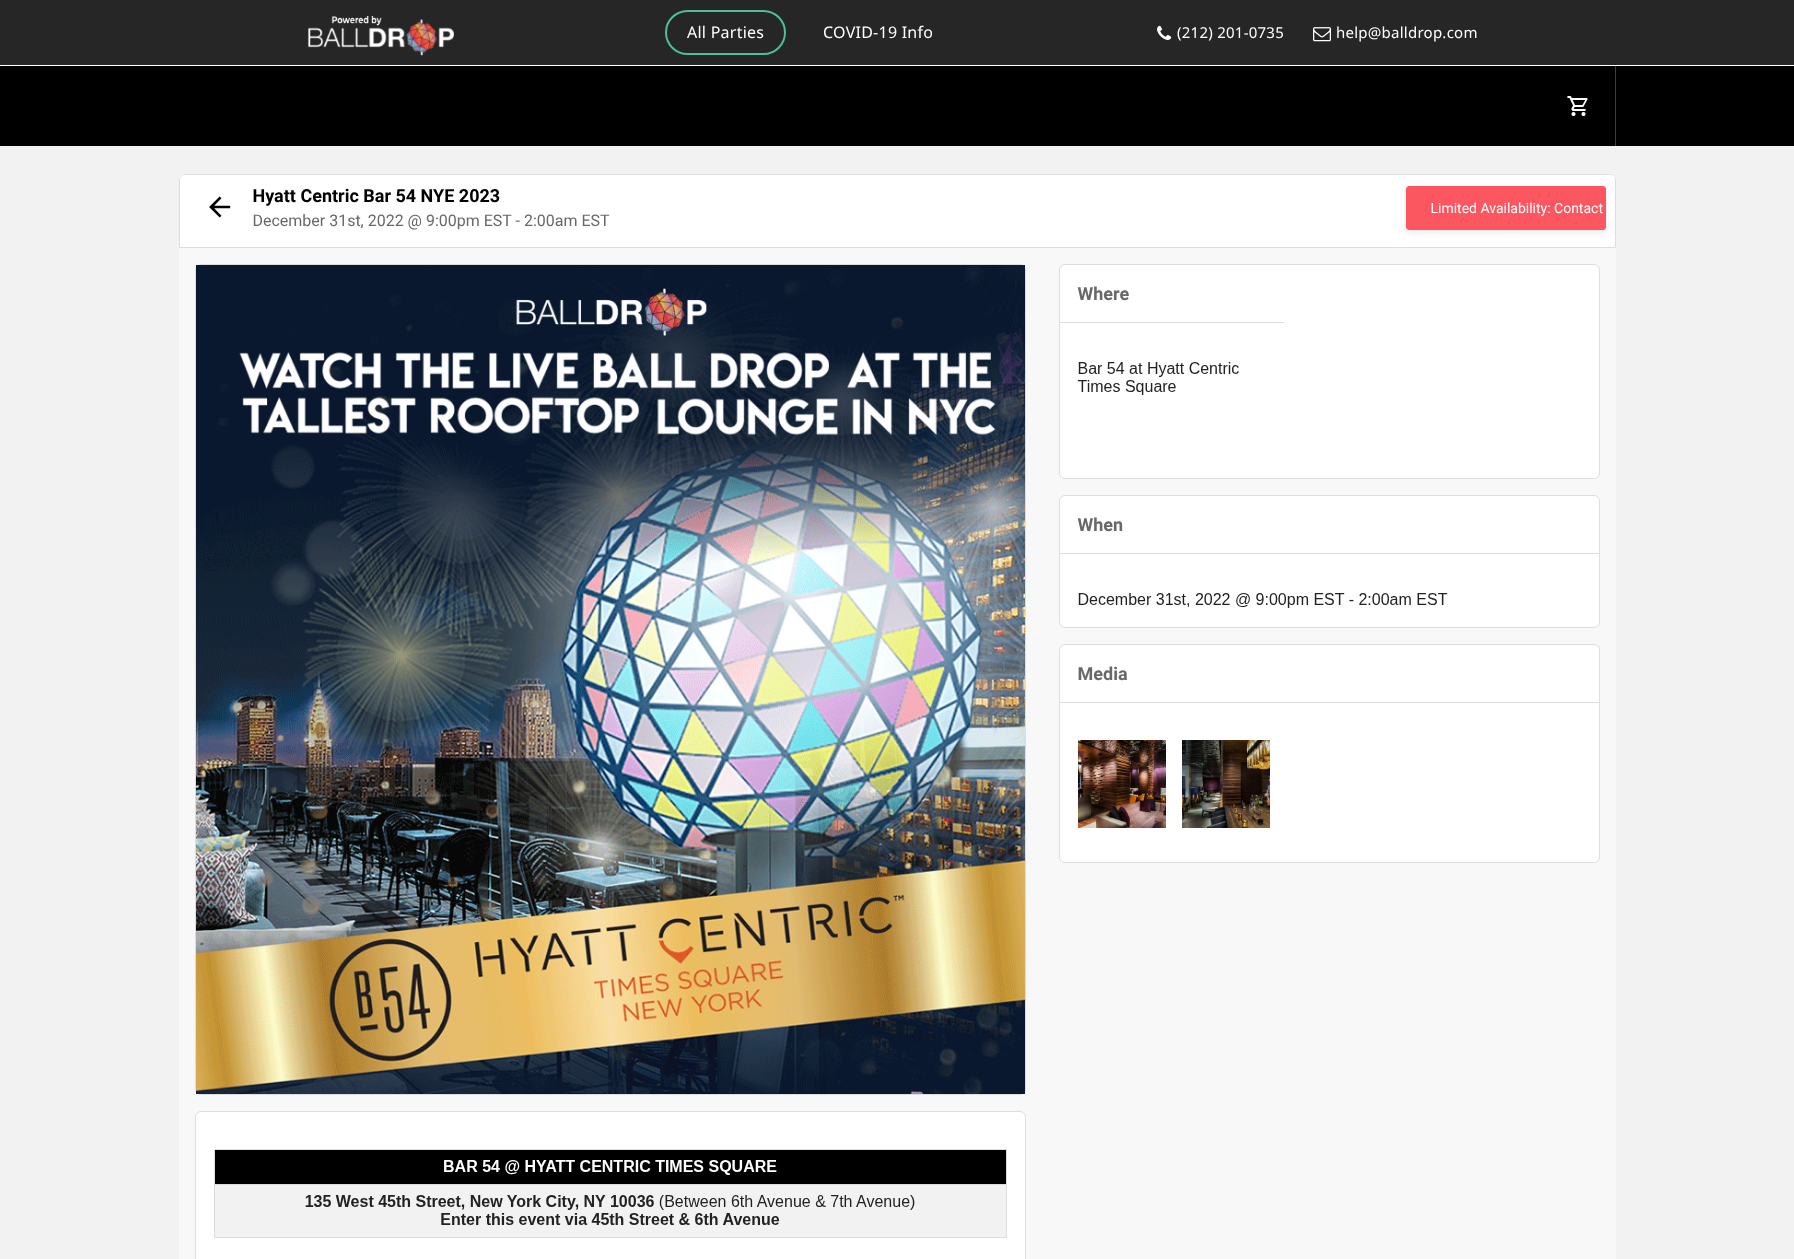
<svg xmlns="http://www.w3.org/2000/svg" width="1794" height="1259">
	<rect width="100%" height="100%" fill="#FFFFFF" />
	<rect x="0" y="0" width="1794" height="65" fill="#262626" />
	<image x="307" y="16" width="147" height="40" href="assets/img1.png" />
	<rect x="666" y="11" width="119" height="43" rx="21.5" fill="none" stroke="#4DBF99" stroke-width="2" />
	<g font-family="Noto Sans" font-size="16" letter-spacing="0.25" fill="#FFFFFF">
		<text x="687" y="38">All Parties</text>
		<text x="823" y="38">COVID-19 Info</text>
	</g>
	<image x="1157" y="25" width="15" height="15" href="assets/img2.png" />
	<text x="1177" y="38" font-family="Noto Sans" font-size="15" letter-spacing="0.25" fill="#FFFFFF">(212) 201-0735</text>
	<image x="1313" y="27" width="18" height="15" href="assets/img3.png" />
	<text x="1336" y="38" font-family="Noto Sans" font-size="15" letter-spacing="0.25" fill="#FFFFFF">help@balldrop.com</text>
	<image x="0" y="66" width="1794" height="1193" href="assets/img4.png" />
</svg>
